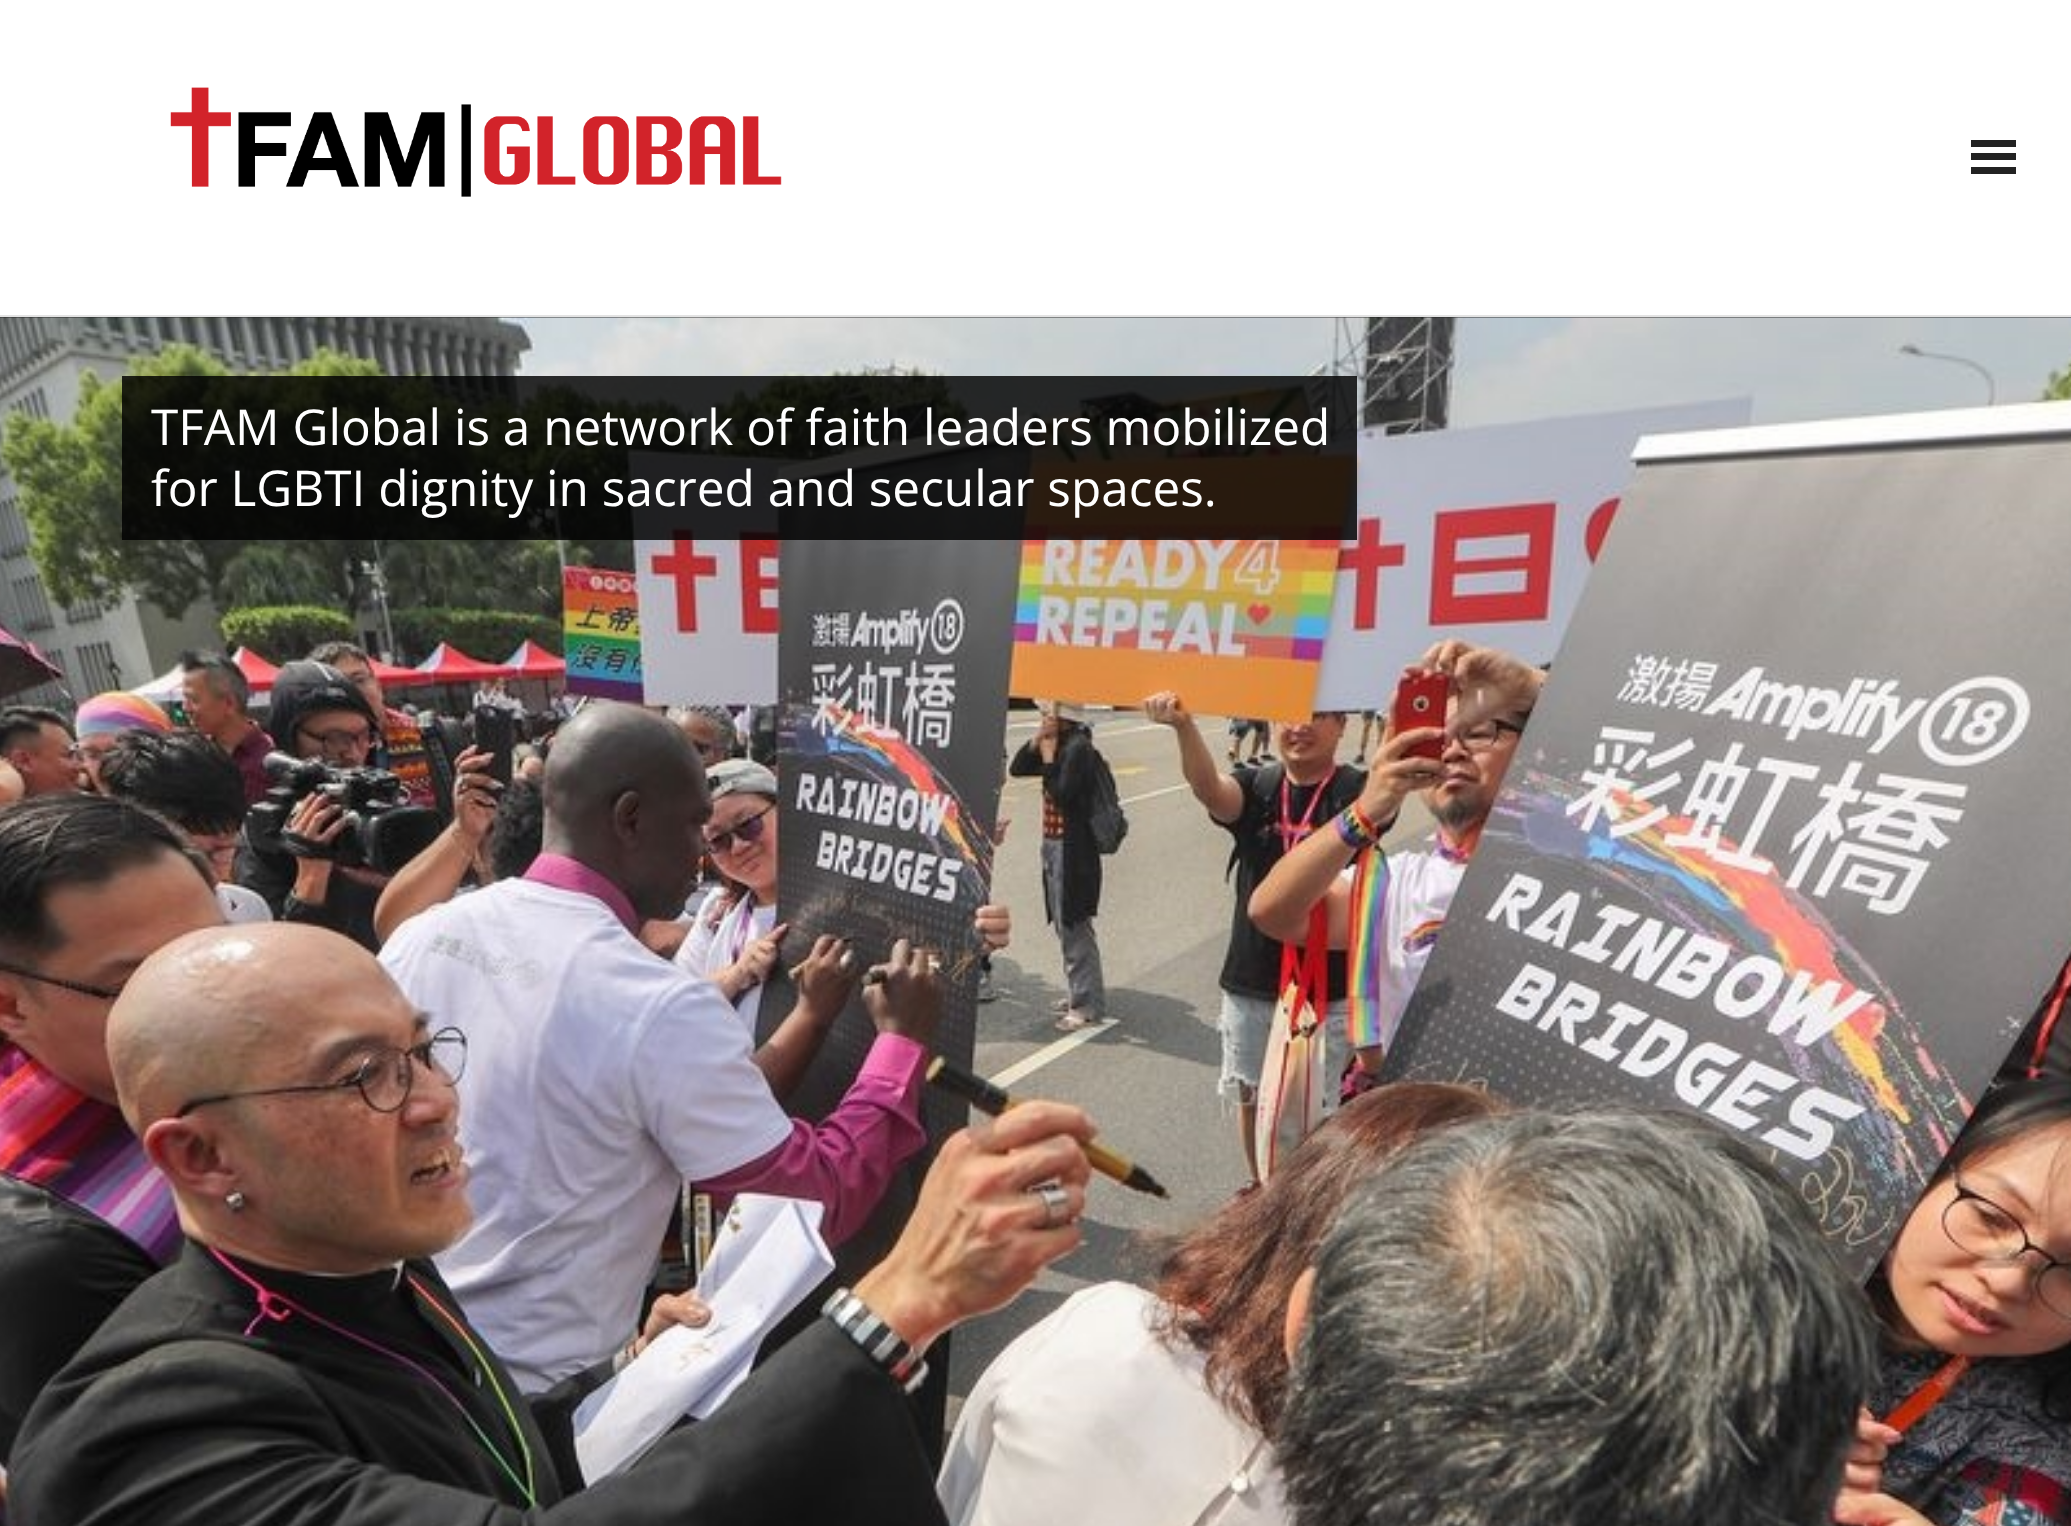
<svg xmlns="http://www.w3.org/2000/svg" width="2071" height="1526">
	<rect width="100%" height="100%" fill="#222222" />
	<rect x="0" y="0" width="2071" height="315" fill="#FFFFFF" />
	<rect x="0" y="315" width="2071" height="2" fill="#E3E3E3" />
	<image x="170" y="87" width="612" height="110" href="assets/img1.png" />
	<rect x="1971" y="153" width="45" height="7" fill="#222222" />
	<rect x="1971" y="140" width="45" height="7" fill="#222222" />
	<rect x="1971" y="167" width="45" height="7" fill="#222222" />
	<image x="0" y="317" width="2071" height="1209" href="assets/img2.png" />
	<rect x="122" y="376" width="1235" height="164" fill="#000000" fill-opacity="0.82" />
	<g font-family="Open Sans" font-size="49.5" fill="#FFFFFF">
		<text x="151" y="445">TFAM Global is a network of faith leaders mobilized</text>
		<text x="151" y="506">for LGBTI dignity in sacred and secular spaces.</text>
	</g>
</svg>
